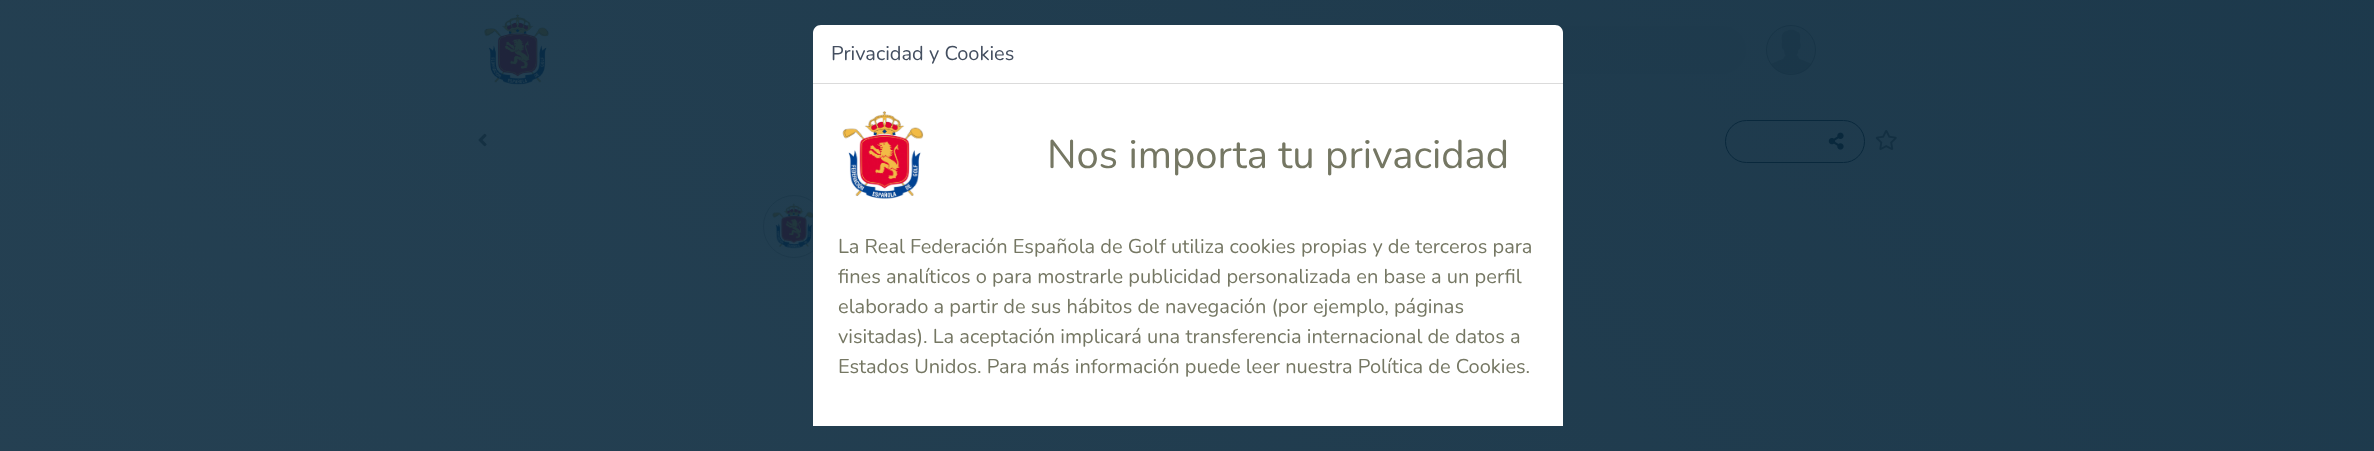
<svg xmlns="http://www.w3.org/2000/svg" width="2374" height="451">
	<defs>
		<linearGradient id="g1" gradientUnits="userSpaceOnUse" x1="-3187" y1="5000" x2="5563" y2="-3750"><stop offset="0" stop-color="#09283C" stop-opacity="0.59" /><stop offset="1" stop-color="#09283C" /></linearGradient>
	</defs>
	<rect width="100%" height="100%" fill="#82919C" />
	<image x="484" y="14" width="65" height="71" href="assets/img1.png" />
	<rect x="1341" y="26" width="405" height="48" rx="24" fill="#7E8D98" />
	<image x="1767" y="26" width="48" height="48" href="assets/img2.png" />
	<circle cx="1791" cy="50" r="24.5" fill="none" stroke="#5D6D77" />
	<image x="478" y="133" width="9" height="14" href="assets/img4.png" />
	<rect x="1725.5" y="120.5" width="139" height="42" rx="21" fill="none" stroke="#09283C" />
	<image x="1828" y="132" width="16" height="18" href="assets/img5.png" />
	<image x="1875" y="130" width="22" height="20" href="assets/img6.png" />
	<rect x="763.5" y="195.5" width="61" height="62" rx="30.5" fill="none" stroke="#697883" />
	<image x="770" y="203" width="43" height="46" href="assets/img7.png" />
	<rect x="0" y="0" width="2374" height="451" fill="url(#g1)" />
	<path d="M821 25H1555C1559.5 25 1563 28.5 1563 33V84H813V33C813 28.5 816.5 25 821 25Z" fill="#FFFFFF" />
	<rect x="813" y="83" width="750" height="1" fill="#DBDBDB" />
	<text x="831" y="60" font-family="Nunito" font-size="20" fill="#444F60">Privacidad y Cookies</text>
	<rect x="813" y="84" width="750" height="342" fill="#FFFFFF" />
	<image x="842" y="111" width="82" height="88" href="assets/img3.png" />
	<text x="1047" y="168" font-family="Nunito" font-size="40" fill="#757763">Nos importa tu privacidad</text>
	<g font-family="Nunito" font-size="20" fill="#757763">
		<text x="838" y="253">La Real Federación Española de Golf utiliza cookies propias y de terceros para</text>
		<text x="838" y="283">fines analíticos o para mostrarle publicidad personalizada en base a un perfil</text>
		<text x="838" y="313">elaborado a partir de sus hábitos de navegación (por ejemplo, páginas</text>
		<text x="838" y="343">visitadas). La aceptación implicará una transferencia internacional de datos a</text>
		<text x="838" y="373">Estados Unidos. Para más información puede leer nuestra Política de Cookies.</text>
	</g>
</svg>
